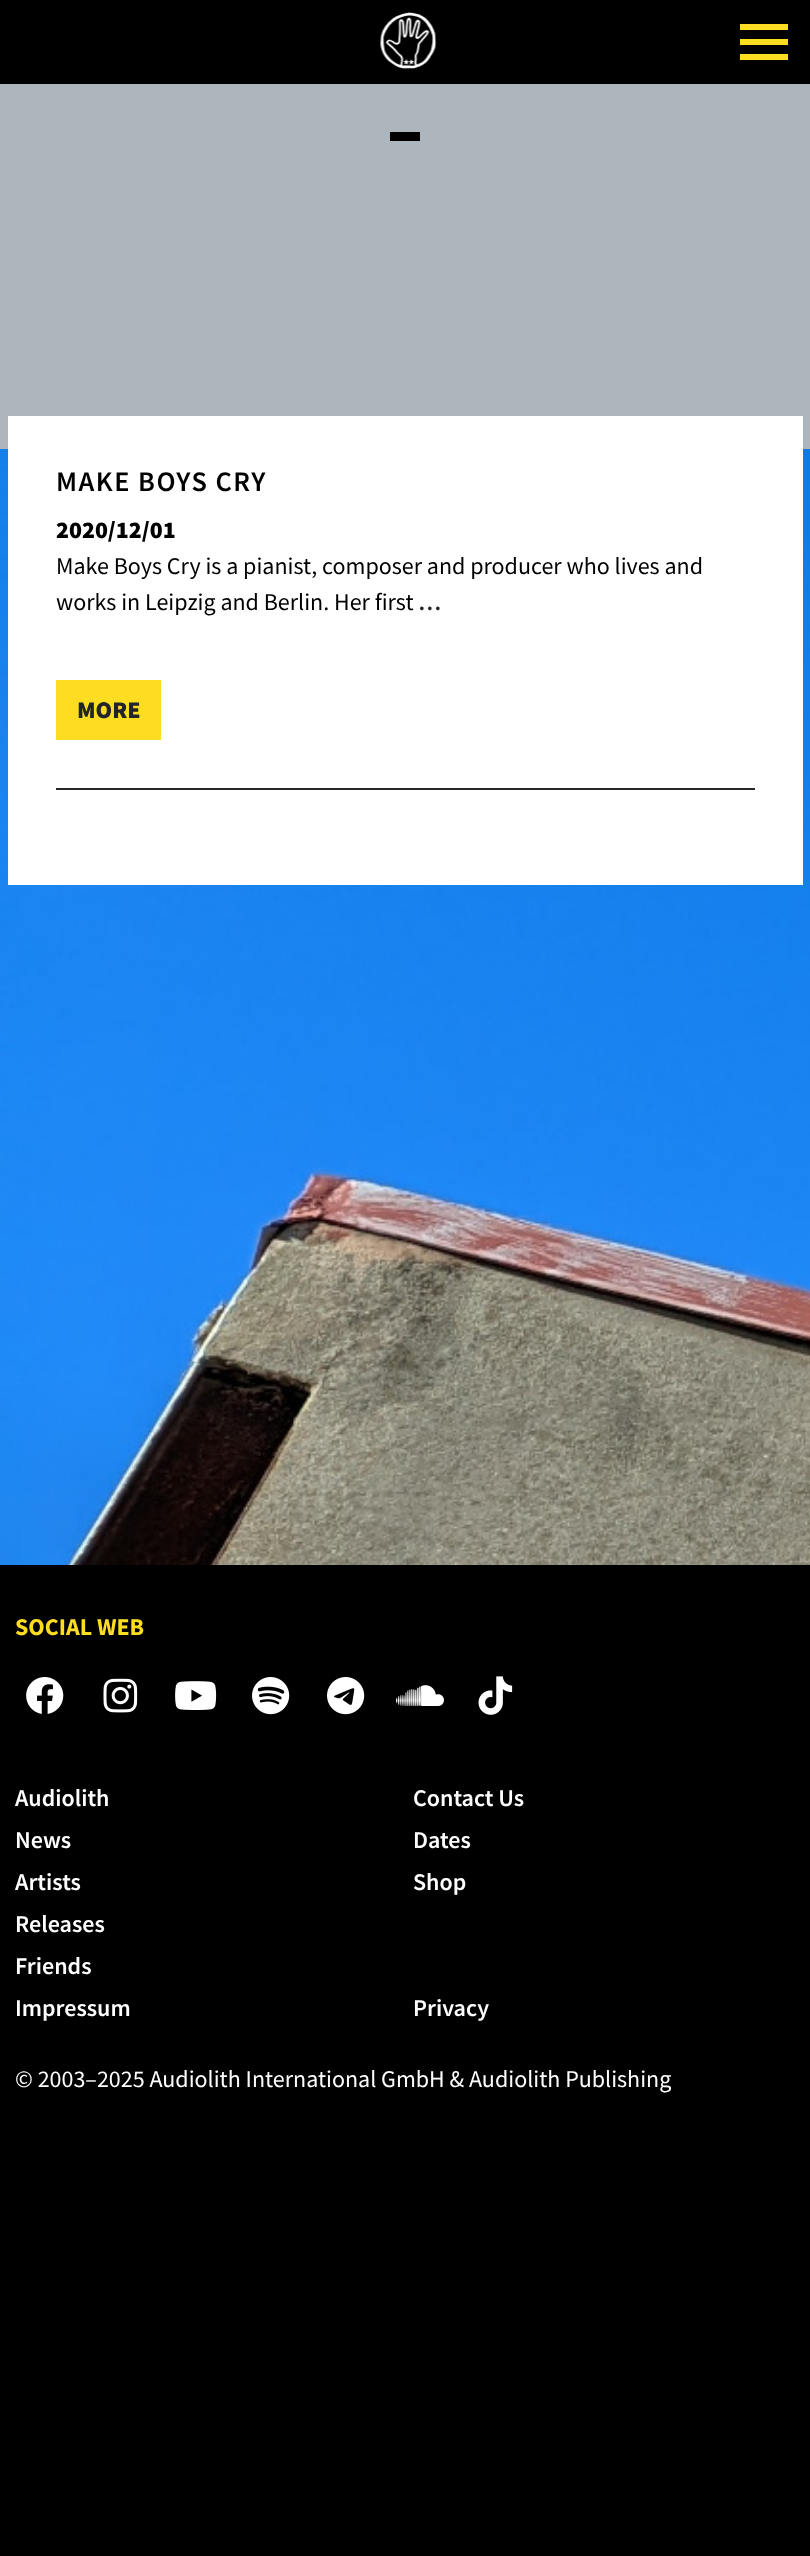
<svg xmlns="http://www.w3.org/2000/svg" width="810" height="2556">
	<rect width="100%" height="100%" fill="#FFFFFF" />
	<image x="0" y="449" width="810" height="1116" href="assets/img1.png" />
	<rect x="0" y="0" width="810" height="84" fill="#000000" />
	<image x="380" y="12" width="57" height="57" href="assets/img2.png" />
	<rect x="740" y="39" width="48" height="6" fill="#FCDD22" />
	<rect x="740" y="24" width="48" height="6" fill="#FCDD22" />
	<rect x="740" y="54" width="48" height="6" fill="#FCDD22" />
	<rect x="0" y="84" width="810" height="365" fill="#ADB5BD" />
	<rect x="390" y="132" width="30" height="9" fill="#000000" />
	<rect x="8" y="416" width="795" height="469" fill="#FFFFFF" />
	<rect x="56" y="788" width="699" height="2" fill="#272727" />
	<text x="56" y="491" font-family="Source Sans Pro" font-size="28.25" font-weight="600" letter-spacing="1.5" fill="#000000">MAKE BOYS CRY</text>
	<text x="56" y="538" font-family="Source Sans Pro" font-size="24" font-weight="900" fill="#000000">2020/12/01</text>
	<g font-family="Source Sans Pro" font-size="24" fill="#000000">
		<text x="56" y="574">Make Boys Cry is a pianist, composer and producer who lives and</text>
		<text x="56" y="610">works in Leipzig and Berlin. Her first</text>
	</g>
	<text x="418" y="610" font-family="Source Sans Pro" font-size="24" font-weight="600" fill="#272727">…</text>
	<rect x="56" y="680" width="105" height="60" fill="#FCDD22" />
	<text x="77" y="718" font-family="Source Sans Pro" font-size="24" font-weight="900" fill="#212529">MORE</text>
	<rect x="0" y="1565" width="810" height="991" fill="#000000" />
	<text x="15" y="1635" font-family="Source Sans Pro" font-size="24" font-weight="700" fill="#FCDD22">SOCIAL WEB</text>
	<image x="26" y="1677" width="38" height="37" href="assets/img3.png" />
	<image x="103" y="1678" width="35" height="35" href="assets/img4.png" />
	<image x="175" y="1681" width="42" height="29" href="assets/img5.png" />
	<image x="252" y="1677" width="38" height="38" href="assets/img6.png" />
	<image x="327" y="1677" width="38" height="38" href="assets/img7.png" />
	<image x="396" y="1685" width="48" height="21" href="assets/img8.png" />
	<image x="478" y="1676" width="35" height="39" href="assets/img9.png" />
	<g font-family="Source Sans Pro" font-size="24" font-weight="600" fill="#FFFFFF">
		<text x="15" y="1806">Audiolith</text>
		<text x="15" y="1848">News</text>
		<text x="15" y="1890">Artists</text>
		<text x="15" y="1932">Releases</text>
		<text x="15" y="1974">Friends</text>
		<text x="413" y="1806">Contact Us</text>
		<text x="413" y="1848">Dates</text>
		<text x="413" y="1890">Shop</text>
		<text x="15" y="2016">Impressum</text>
		<text x="413" y="2016">Privacy</text>
	</g>
	<text x="15" y="2087" font-family="Source Sans Pro" font-size="24" fill="#FFFFFF">© 2003–2025 Audiolith International GmbH &amp; Audiolith Publishing</text>
</svg>
